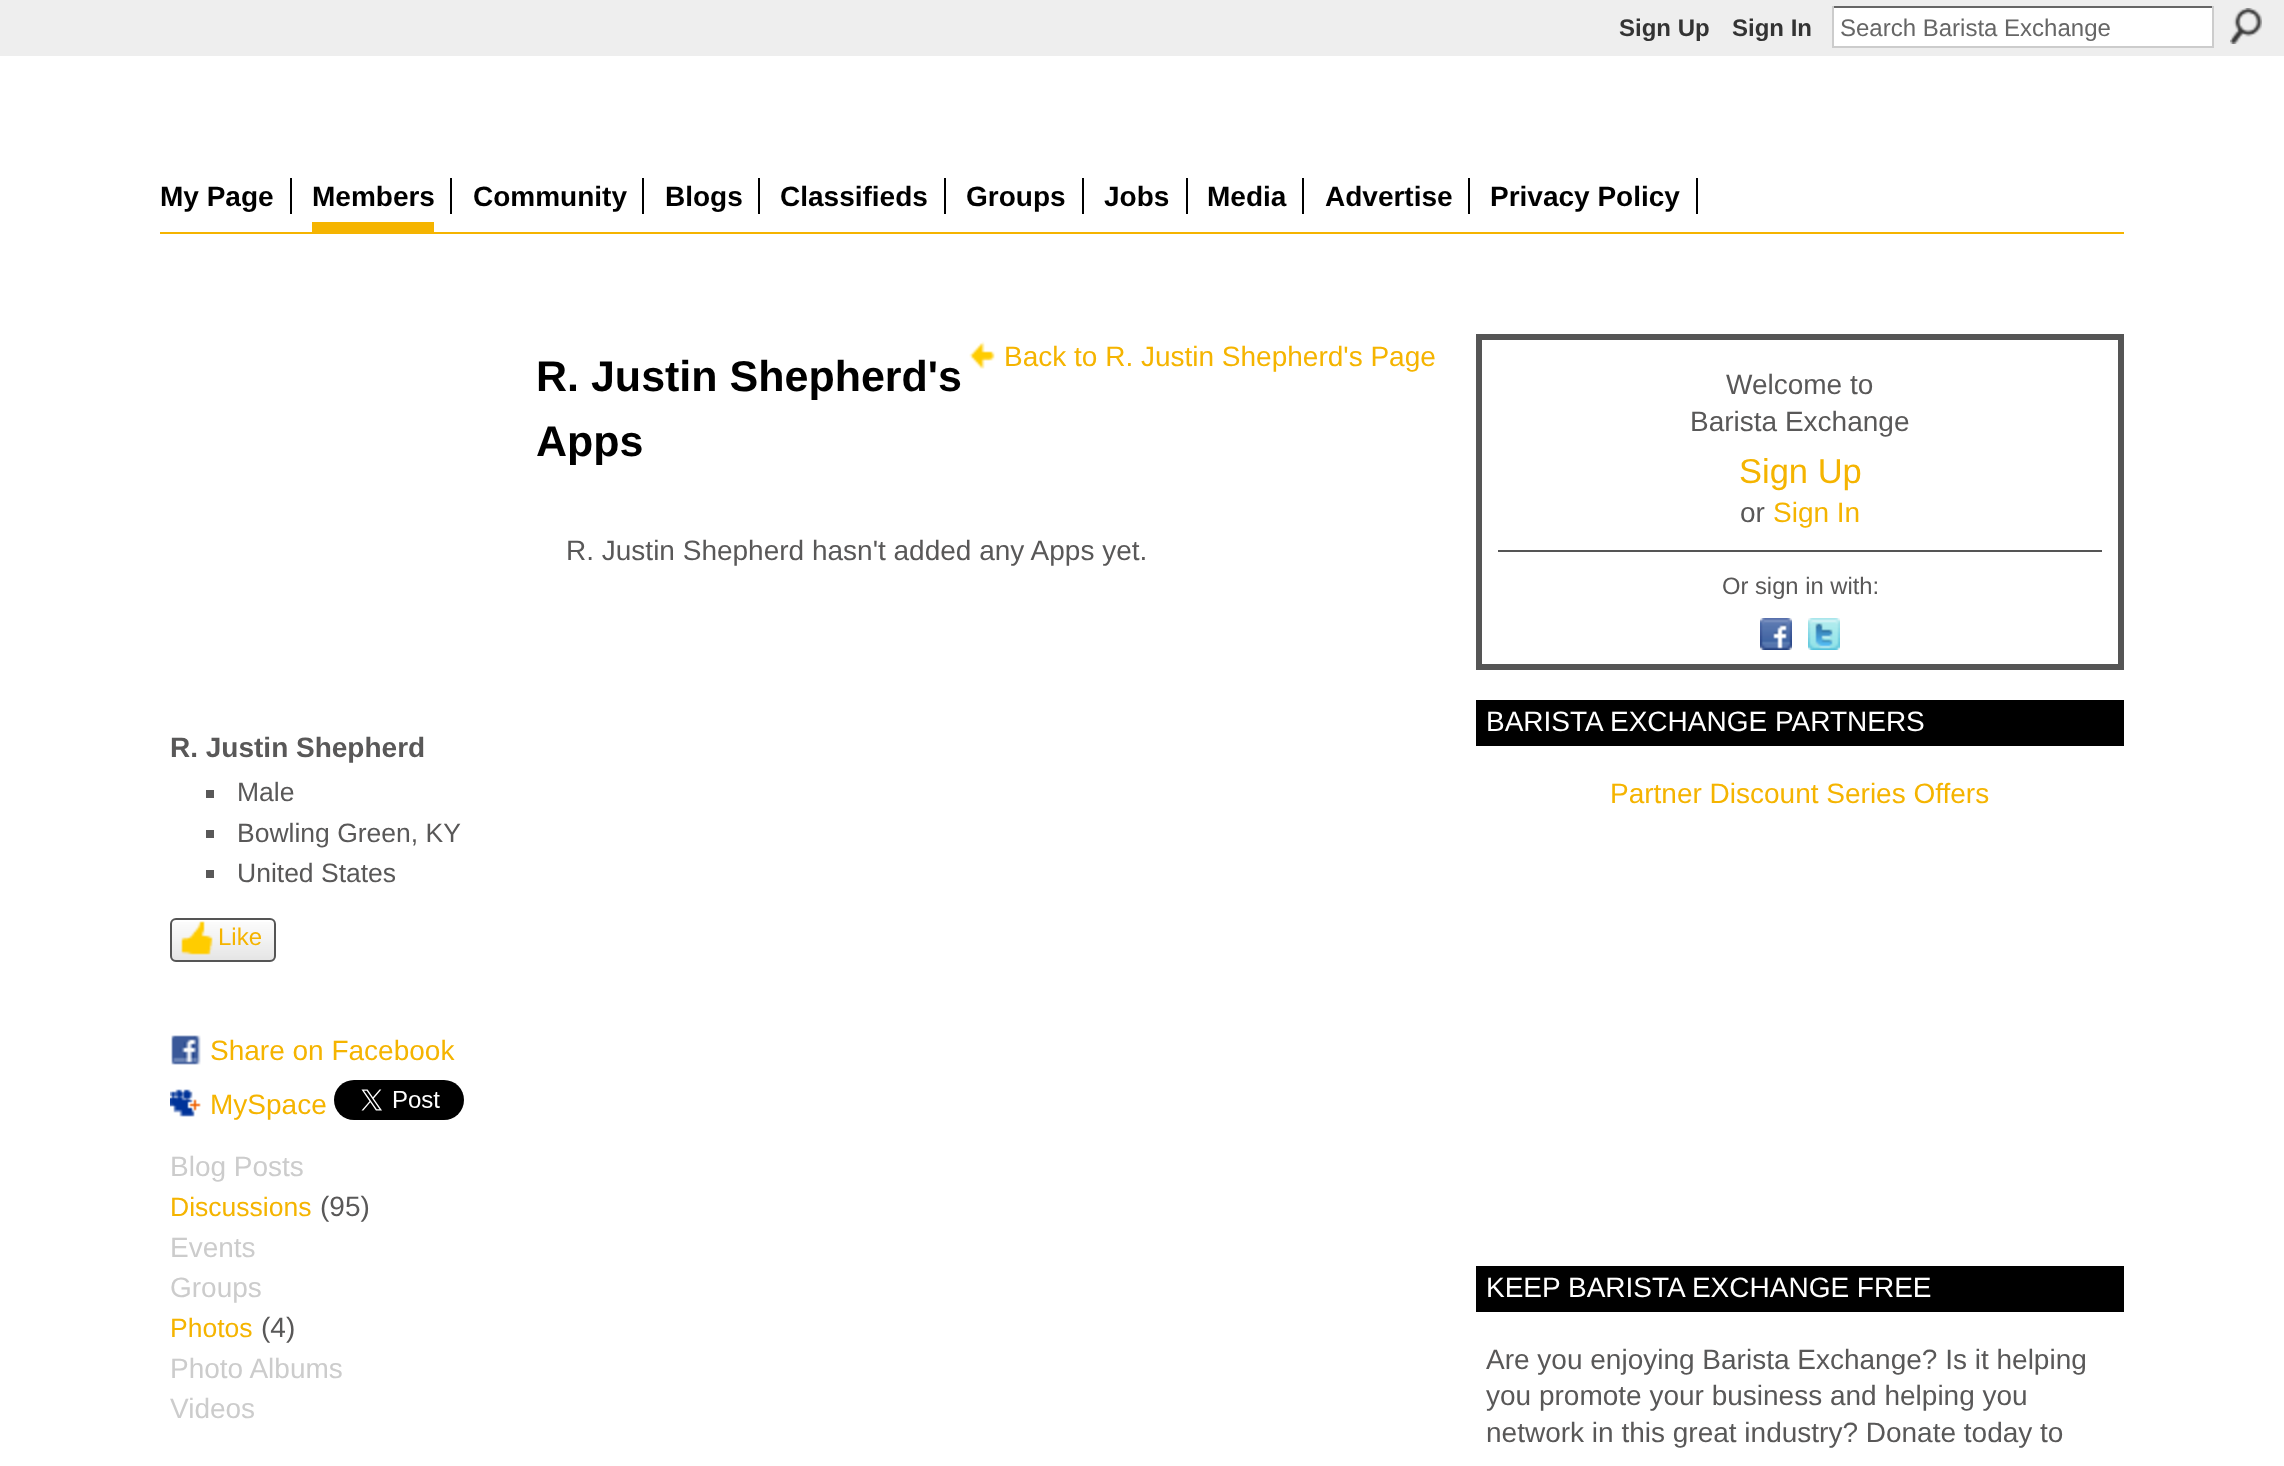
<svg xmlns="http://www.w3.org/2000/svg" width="2284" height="1466">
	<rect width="100%" height="100%" fill="#FFFFFF" />
	<rect x="0" y="0" width="2284" height="56" fill="#EEEEEE" />
	<g font-family="Liberation Sans" font-size="24" font-weight="700" fill="#333333">
		<text x="1619" y="36">Sign Up</text>
		<text x="1732" y="36">Sign In</text>
	</g>
	<rect x="1834" y="8" width="378" height="38" fill="#FFFFFF" />
	<rect x="1832" y="6" width="382" height="2" fill="#666666" />
	<rect x="2212" y="6" width="2" height="42" fill="#CCCCCC" />
	<rect x="1832" y="46" width="382" height="2" fill="#CCCCCC" />
	<rect x="1832" y="6" width="2" height="42" fill="#CCCCCC" />
	<text x="1840" y="36" font-family="Liberation Sans" font-size="24" fill="#666666">Search Barista Exchange</text>
	<image x="2230" y="8" width="32" height="36" href="assets/img1.png" />
	<rect x="160" y="232" width="1964" height="2" fill="#F5B400" />
	<rect x="290" y="178" width="2" height="36" fill="#000000" />
	<text x="160" y="206" font-family="Liberation Sans" font-size="28" font-weight="700" fill="#000000">My Page</text>
	<rect x="450" y="178" width="2" height="36" fill="#000000" />
	<text x="312" y="206" font-family="Liberation Sans" font-size="28" font-weight="700" fill="#000000">Members</text>
	<rect x="312" y="222" width="122" height="10" fill="#F5B400" />
	<rect x="642" y="178" width="2" height="36" fill="#000000" />
	<text x="473" y="206" font-family="Liberation Sans" font-size="28" font-weight="700" fill="#000000">Community</text>
	<rect x="758" y="178" width="2" height="36" fill="#000000" />
	<text x="665" y="206" font-family="Liberation Sans" font-size="28" font-weight="700" fill="#000000">Blogs</text>
	<rect x="944" y="178" width="2" height="36" fill="#000000" />
	<text x="780" y="206" font-family="Liberation Sans" font-size="28" font-weight="700" fill="#000000">Classifieds</text>
	<rect x="1082" y="178" width="2" height="36" fill="#000000" />
	<text x="966" y="206" font-family="Liberation Sans" font-size="28" font-weight="700" fill="#000000">Groups</text>
	<rect x="1186" y="178" width="2" height="36" fill="#000000" />
	<text x="1104" y="206" font-family="Liberation Sans" font-size="28" font-weight="700" fill="#000000">Jobs</text>
	<rect x="1302" y="178" width="2" height="36" fill="#000000" />
	<text x="1207" y="206" font-family="Liberation Sans" font-size="28" font-weight="700" fill="#000000">Media</text>
	<rect x="1468" y="178" width="2" height="36" fill="#000000" />
	<text x="1325" y="206" font-family="Liberation Sans" font-size="28" font-weight="700" fill="#000000">Advertise</text>
	<rect x="1696" y="178" width="2" height="36" fill="#000000" />
	<text x="1490" y="206" font-family="Liberation Sans" font-size="28" font-weight="700" fill="#000000">Privacy Policy</text>
	<g font-family="Liberation Sans" font-size="43" font-weight="700" fill="#000000">
		<text x="536" y="391">R. Justin Shepherd's</text>
		<text x="536" y="456">Apps</text>
	</g>
	<image x="969" y="341" width="26" height="28" href="assets/img2.png" />
	<text x="1004" y="366" font-family="Liberation Sans" font-size="28" fill="#F5B400">Back to R. Justin Shepherd's Page</text>
	<text x="566" y="560" font-family="Liberation Sans" font-size="28" fill="#595858">R. Justin Shepherd hasn't added any Apps yet.</text>
	<text x="170" y="757" font-family="Liberation Sans" font-size="28" font-weight="700" fill="#595858">R. Justin Shepherd</text>
	<rect x="206" y="790" width="8" height="8" fill="#595858" />
	<text x="237" y="801" font-family="Liberation Sans" font-size="26.5" fill="#595858">Male</text>
	<rect x="206" y="830" width="8" height="8" fill="#595858" />
	<text x="237" y="842" font-family="Liberation Sans" font-size="26.5" fill="#595858">Bowling Green, KY</text>
	<rect x="206" y="870" width="8" height="8" fill="#595858" />
	<text x="237" y="882" font-family="Liberation Sans" font-size="26.5" fill="#595858">United States</text>
	<image x="170" y="922" width="106" height="40" href="assets/img3.png" />
	<rect x="171" y="919" width="104" height="42" rx="5" fill="none" stroke="#555555" stroke-width="2" />
	<image x="181" y="921" width="32" height="34" href="assets/img4.png" />
	<text x="218" y="945" font-family="Liberation Sans" font-size="24" fill="#F5B400">Like</text>
	<image x="171" y="1035" width="30" height="30" href="assets/img5.png" />
	<text x="210" y="1060" font-family="Liberation Sans" font-size="28" fill="#F5B400">Share on Facebook</text>
	<image x="170" y="1089" width="31" height="28" href="assets/img6.png" />
	<text x="210" y="1114" font-family="Liberation Sans" font-size="28" fill="#F5B400">MySpace</text>
	<image x="334" y="1080" width="130" height="40" href="assets/img7.png" />
	<text x="170" y="1176" font-family="Liberation Sans" font-size="28" fill="#CCCCCC">Blog Posts</text>
	<text x="170" y="1216" font-family="Liberation Sans" font-size="26.5" fill="#F5B400">Discussions</text>
	<text x="320" y="1216" font-family="Liberation Sans" font-size="28" fill="#595858">(95)</text>
	<g font-family="Liberation Sans" font-size="28" fill="#CCCCCC">
		<text x="170" y="1257">Events</text>
		<text x="170" y="1297">Groups</text>
	</g>
	<text x="170" y="1337" font-family="Liberation Sans" font-size="26.5" fill="#F5B400">Photos</text>
	<text x="261" y="1337" font-family="Liberation Sans" font-size="28" fill="#595858">(4)</text>
	<g font-family="Liberation Sans" font-size="28" fill="#CCCCCC">
		<text x="170" y="1378">Photo Albums</text>
		<text x="170" y="1418">Videos</text>
	</g>
	<rect x="1479" y="337" width="642" height="330" fill="none" stroke="#555555" stroke-width="6" />
	<g font-family="Liberation Sans" font-size="28" fill="#595858">
		<text x="1726" y="394">Welcome to</text>
		<text x="1690" y="431">Barista Exchange</text>
	</g>
	<text x="1739" y="483" font-family="Liberation Sans" font-size="34.5" fill="#F5B400">Sign Up</text>
	<text x="1740" y="522" font-family="Liberation Sans" font-size="28" fill="#595858">or</text>
	<text x="1773" y="522" font-family="Liberation Sans" font-size="28" fill="#F5B400">Sign In</text>
	<rect x="1498" y="550" width="604" height="2" fill="#555555" />
	<text x="1722" y="594" font-family="Liberation Sans" font-size="23.75" fill="#595858">Or sign in with:</text>
	<image x="1760" y="618" width="32" height="32" href="assets/img8.png" />
	<image x="1808" y="618" width="32" height="32" href="assets/img9.png" />
	<rect x="1476" y="700" width="648" height="46" fill="#000000" />
	<text x="1486" y="731" font-family="Liberation Sans" font-size="28" fill="#FFFFFF">BARISTA EXCHANGE PARTNERS</text>
	<text x="1610" y="803" font-family="Liberation Sans" font-size="28" fill="#F5B400">Partner Discount Series Offers</text>
	<rect x="1476" y="1266" width="648" height="46" fill="#000000" />
	<text x="1486" y="1297" font-family="Liberation Sans" font-size="28" fill="#FFFFFF">KEEP BARISTA EXCHANGE FREE</text>
	<g font-family="Liberation Sans" font-size="28" fill="#595858">
		<text x="1486" y="1369">Are you enjoying Barista Exchange? Is it helping</text>
		<text x="1486" y="1405">you promote your business and helping you</text>
		<text x="1486" y="1442">network in this great industry? Donate today to</text>
	</g>
</svg>
